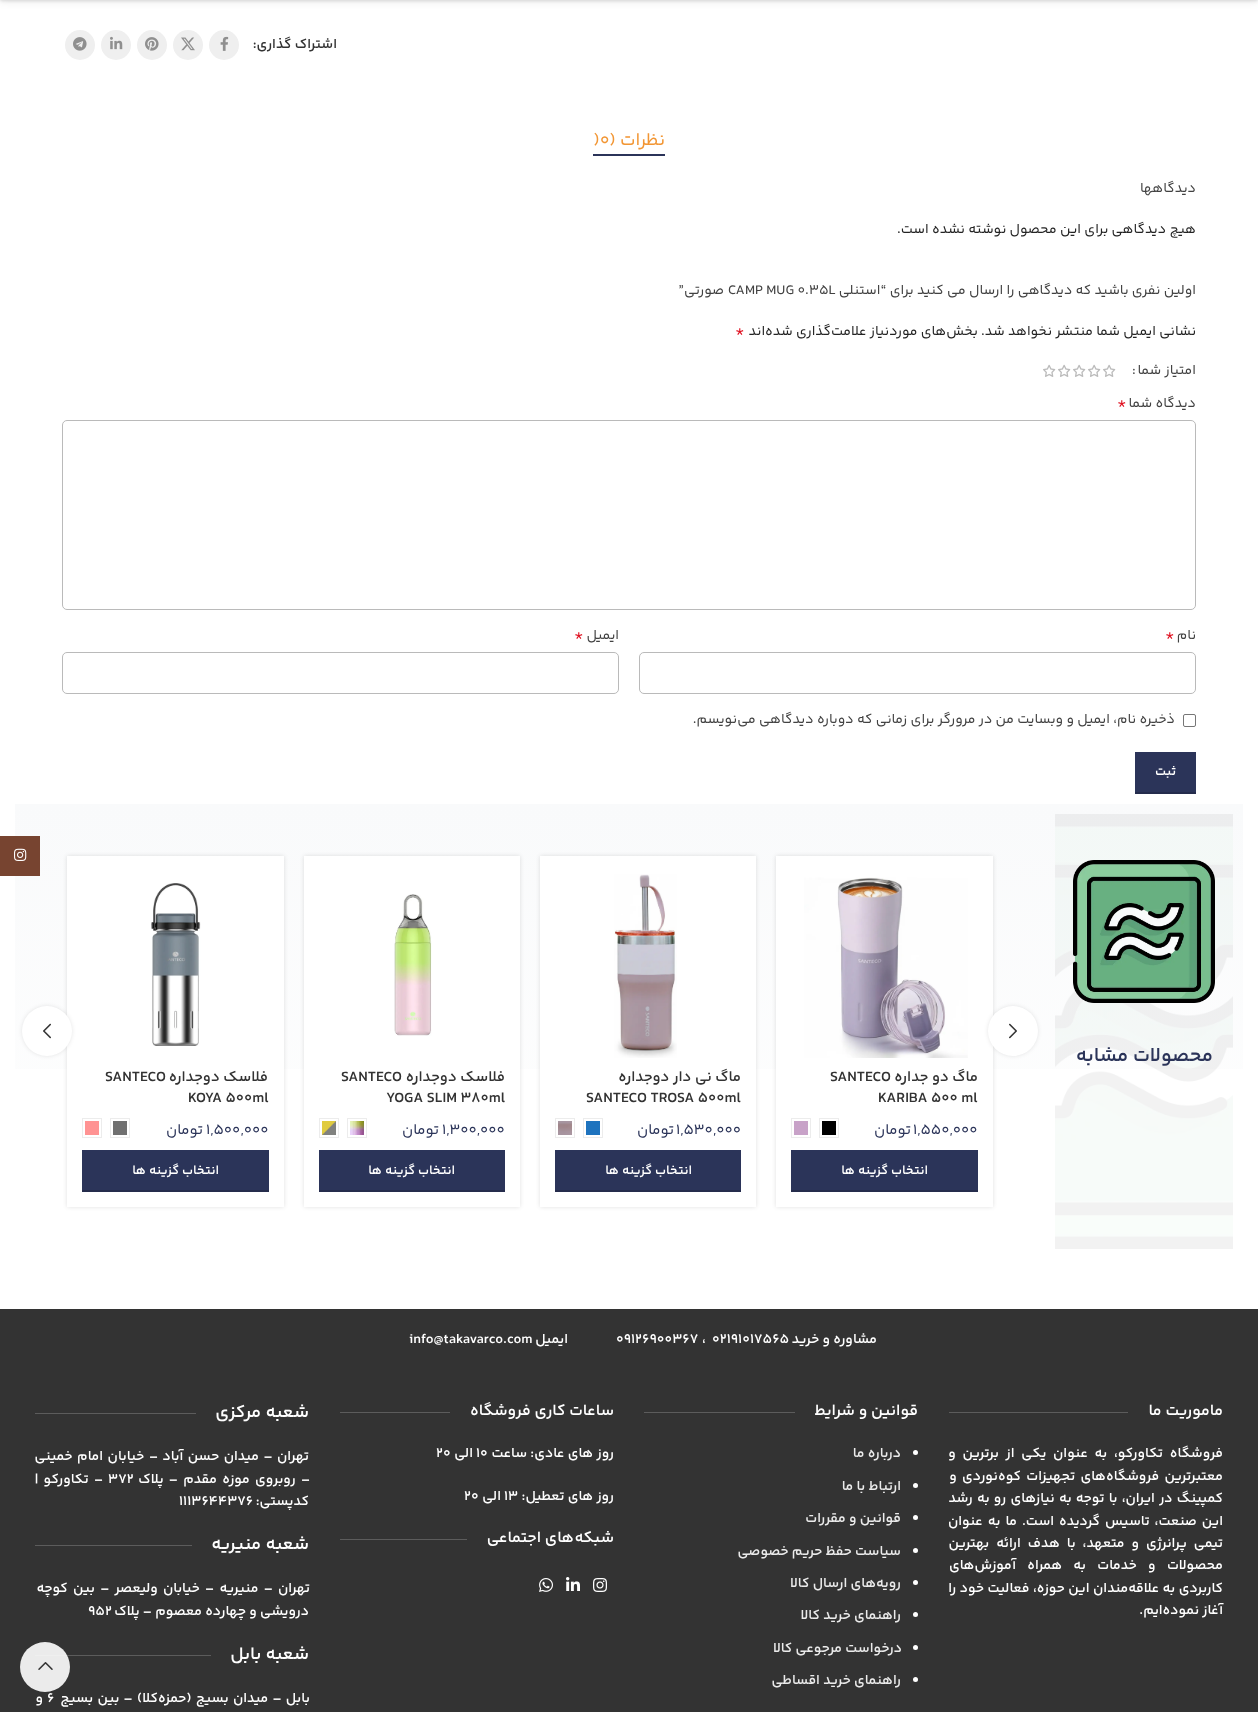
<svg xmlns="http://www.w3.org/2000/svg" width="1258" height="1712">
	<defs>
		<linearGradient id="g1" gradientUnits="userSpaceOnUse" x1="629" y1="804" x2="629" y2="1259"><stop offset="0" stop-color="#F9FAFB" /><stop offset="1" stop-color="#FFFFFF" /></linearGradient>
	</defs>
	<rect width="100%" height="100%" fill="#FFFFFF" />
	<rect x="0" y="-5" width="1258" height="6" fill="#000000" fill-opacity="0.1" filter="blur(1.5px)" />
	<rect x="0" y="-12" width="1258" height="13" fill="#000000" fill-opacity="0.1" filter="blur(4px)" />
	<text x="337" y="48" font-family="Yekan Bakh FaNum" font-size="14" font-weight="600" direction="rtl" fill="#333333">اشتراک گذاری:</text>
	<circle cx="224" cy="45" r="15" fill="#EFEFEF" />
	<image x="220" y="36" width="9" height="15" href="assets/img1.png" />
	<circle cx="188" cy="45" r="15" fill="#EFEFEF" />
	<image x="181" y="37" width="14" height="14" href="assets/img2.png" />
	<circle cx="152" cy="45" r="15" fill="#EFEFEF" />
	<image x="145" y="37" width="14" height="14" href="assets/img3.png" />
	<circle cx="116" cy="45" r="15" fill="#EFEFEF" />
	<image x="110" y="36" width="13" height="14" href="assets/img4.png" />
	<circle cx="80" cy="45" r="15" fill="#EFEFEF" />
	<image x="73" y="37" width="14" height="14" href="assets/img5.png" />
	<text x="665" y="145" font-family="Yekan Bakh FaNum" font-size="18" direction="rtl" fill="#F29634">نظرات (</text>
	<text x="593" y="145" font-family="Yekan Bakh FaNum" font-size="18" fill="#F29634">)0</text>
	<rect x="593" y="154" width="72" height="2" fill="#2B3459" />
	<text x="1196" y="192" font-family="Yekan Bakh FaNum" font-size="14" direction="rtl" fill="#424242">دیدگاهها</text>
	<text x="1196" y="233" font-family="Yekan Bakh FaNum" font-size="14" direction="rtl" fill="#242424">هیچ دیدگاهی برای این محصول نوشته نشده است.</text>
	<text x="1196" y="294" font-family="Yekan Bakh FaNum" font-size="14" direction="rtl" fill="#424242">اولین نفری باشید که دیدگاهی را ارسال می کنید برای “استنلی</text>
	<text x="728" y="294" font-family="Yekan Bakh FaNum" font-size="14" fill="#424242">CAMP MUG 0.35L</text>
	<text x="724" y="294" font-family="Yekan Bakh FaNum" font-size="14" direction="rtl" fill="#424242">صورتی”</text>
	<g font-family="Yekan Bakh FaNum" font-size="14" direction="rtl" fill="#242424">
		<text x="1196" y="335">نشانی ایمیل شما منتشر نخواهد شد.</text>
		<text x="978" y="335">بخش‌های موردنیاز علامت‌گذاری شده‌اند</text>
	</g>
	<text x="735" y="335" font-family="Yekan Bakh FaNum" font-size="16" fill="#E01020">*</text>
	<text x="1196" y="374" font-family="Yekan Bakh FaNum" font-size="14" direction="rtl" fill="#424242">امتیاز شما</text>
	<text x="1132" y="374" font-family="Yekan Bakh FaNum" font-size="14" fill="#424242">:</text>
	<image x="1103" y="364" width="13" height="13" href="assets/img6.png" />
	<image x="1088" y="364" width="13" height="13" href="assets/img6.png" />
	<image x="1073" y="364" width="13" height="13" href="assets/img6.png" />
	<image x="1058" y="364" width="13" height="13" href="assets/img6.png" />
	<image x="1043" y="364" width="13" height="13" href="assets/img6.png" />
	<text x="1196" y="407" font-family="Yekan Bakh FaNum" font-size="14" direction="rtl" fill="#424242">دیدگاه شما</text>
	<text x="1117" y="407" font-family="Yekan Bakh FaNum" font-size="16" fill="#E01020">*</text>
	<rect x="62.5" y="420.5" width="1133" height="189" rx="4.5" fill="none" stroke="#BABABA" />
	<text x="1196" y="639" font-family="Yekan Bakh FaNum" font-size="14" direction="rtl" fill="#424242">نام</text>
	<text x="1165" y="639" font-family="Yekan Bakh FaNum" font-size="16" fill="#E01020">*</text>
	<rect x="639.5" y="652.5" width="556" height="41" rx="4.5" fill="none" stroke="#BABABA" />
	<text x="619" y="639" font-family="Yekan Bakh FaNum" font-size="14" direction="rtl" fill="#424242">ایمیل</text>
	<text x="574" y="639" font-family="Yekan Bakh FaNum" font-size="16" fill="#E01020">*</text>
	<rect x="62.5" y="652.5" width="556" height="41" rx="4.5" fill="none" stroke="#BABABA" />
	<rect x="1183.5" y="714.5" width="12" height="12" rx="1.5" fill="none" stroke="#767676" />
	<text x="1175" y="723" font-family="Yekan Bakh FaNum" font-size="14" direction="rtl" fill="#424242">ذخیره نام، ایمیل و وبسایت من در مرورگر برای زمانی که دوباره دیدگاهی می‌نویسم.</text>
	<rect x="1135" y="752" width="61" height="40" fill="#2B3459" />
	<rect x="1135" y="792" width="61" height="2" fill="#252C4C" />
	<text x="1176" y="775" font-family="Yekan Bakh FaNum" font-size="13" font-weight="600" direction="rtl" fill="#FFFFFF">ثبت</text>
	<rect x="15" y="804" width="1228" height="265" fill="url(#g1)" />
	<image x="1055" y="814" width="178" height="435" href="assets/img7.png" />
	<image x="1073" y="860" width="142" height="143" href="assets/img8.png" />
	<text x="1213" y="1061" font-family="Yekan Bakh FaNum" font-size="20" font-weight="600" direction="rtl" fill="#2B3459">محصولات مشابه</text>
	<rect x="776" y="856" width="217" height="351" fill="#000000" fill-opacity="0.12" filter="blur(2px)" />
	<rect x="776" y="856" width="217" height="351" fill="#FFFFFF" />
	<rect x="988" y="1006" width="50" height="50" rx="25" fill="#000000" fill-opacity="0.1" filter="blur(2px)" />
	<circle cx="1013" cy="1031" r="25" fill="#FFFFFF" />
	<image x="1009" y="1023" width="8" height="16" href="assets/img9.png" />
	<rect x="67" y="856" width="217" height="351" fill="#000000" fill-opacity="0.12" filter="blur(2px)" />
	<rect x="67" y="856" width="217" height="351" fill="#FFFFFF" />
	<rect x="22" y="1006" width="50" height="50" rx="25" fill="#000000" fill-opacity="0.1" filter="blur(2px)" />
	<circle cx="47" cy="1031" r="25" fill="#FFFFFF" />
	<image x="43" y="1023" width="8" height="16" href="assets/img10.png" />
	<image x="804" y="877" width="164" height="181" href="assets/img11.png" />
	<text x="978" y="1081" font-family="Yekan Bakh FaNum" font-size="15" font-weight="600" direction="rtl" fill="#333333">ماگ دو جداره</text>
	<g font-family="Yekan Bakh FaNum" font-size="15" font-weight="600" fill="#333333">
		<text x="830" y="1081">SANTECO</text>
		<text x="878" y="1102">KARIBA 500 ml</text>
	</g>
	<text x="913" y="1134" font-family="Yekan Bakh FaNum" font-size="15" fill="#2B3459">1,550,000</text>
	<text x="911" y="1134" font-family="Yekan Bakh FaNum" font-size="15" direction="rtl" fill="#2B3459">تومان</text>
	<rect x="819.5" y="1118.5" width="19" height="19" fill="none" stroke="#ECECEC" />
	<rect x="822" y="1121" width="14" height="14" fill="#000000" />
	<rect x="791.5" y="1118.5" width="19" height="19" fill="none" stroke="#ECECEC" />
	<rect x="794" y="1121" width="14" height="14" fill="#C8A2C8" />
	<rect x="791" y="1150" width="187" height="40" fill="#2B3459" />
	<rect x="791" y="1190" width="187" height="2" fill="#252C4C" />
	<text x="928" y="1174" font-family="Yekan Bakh FaNum" font-size="13" font-weight="600" direction="rtl" fill="#FFFFFF">انتخاب گزینه ها</text>
	<rect x="540" y="856" width="216" height="351" fill="#000000" fill-opacity="0.12" filter="blur(2px)" />
	<rect x="540" y="856" width="216" height="351" fill="#FFFFFF" />
	<image x="614" y="874" width="63" height="184" href="assets/img12.png" />
	<text x="741" y="1081" font-family="Yekan Bakh FaNum" font-size="15" font-weight="600" direction="rtl" fill="#333333">ماگ نی دار دو‌جداره</text>
	<text x="586" y="1102" font-family="Yekan Bakh FaNum" font-size="15" font-weight="600" fill="#333333">SANTECO TROSA 500ml</text>
	<text x="676" y="1134" font-family="Yekan Bakh FaNum" font-size="15" fill="#2B3459">1,530,000</text>
	<text x="674" y="1134" font-family="Yekan Bakh FaNum" font-size="15" direction="rtl" fill="#2B3459">تومان</text>
	<rect x="583.5" y="1118.5" width="19" height="19" fill="none" stroke="#ECECEC" />
	<rect x="586" y="1121" width="14" height="14" fill="#1E73BE" />
	<rect x="555.5" y="1118.5" width="19" height="19" fill="none" stroke="#ECECEC" />
	<image x="558" y="1121" width="14" height="14" href="assets/img13.png" />
	<rect x="555" y="1150" width="186" height="40" fill="#2B3459" />
	<rect x="555" y="1190" width="186" height="2" fill="#252C4C" />
	<text x="692" y="1174" font-family="Yekan Bakh FaNum" font-size="13" font-weight="600" direction="rtl" fill="#FFFFFF">انتخاب گزینه ها</text>
	<rect x="304" y="856" width="216" height="351" fill="#000000" fill-opacity="0.12" filter="blur(2px)" />
	<rect x="304" y="856" width="216" height="351" fill="#FFFFFF" />
	<image x="394" y="894" width="38" height="142" href="assets/img14.png" />
	<text x="505" y="1081" font-family="Yekan Bakh FaNum" font-size="15" font-weight="600" direction="rtl" fill="#333333">فلاسک دوجداره</text>
	<g font-family="Yekan Bakh FaNum" font-size="15" font-weight="600" fill="#333333">
		<text x="341" y="1081">SANTECO</text>
		<text x="386" y="1102">YOGA SLIM 380ml</text>
	</g>
	<text x="442" y="1134" font-family="Yekan Bakh FaNum" font-size="15" fill="#2B3459">1,300,000</text>
	<text x="439" y="1134" font-family="Yekan Bakh FaNum" font-size="15" direction="rtl" fill="#2B3459">تومان</text>
	<rect x="347.5" y="1118.5" width="19" height="19" fill="none" stroke="#ECECEC" />
	<image x="350" y="1121" width="14" height="14" href="assets/img15.png" />
	<rect x="319.5" y="1118.5" width="19" height="19" fill="none" stroke="#ECECEC" />
	<image x="322" y="1121" width="14" height="14" href="assets/img16.png" />
	<rect x="319" y="1150" width="186" height="40" fill="#2B3459" />
	<rect x="319" y="1190" width="186" height="2" fill="#252C4C" />
	<text x="455" y="1174" font-family="Yekan Bakh FaNum" font-size="13" font-weight="600" direction="rtl" fill="#FFFFFF">انتخاب گزینه ها</text>
	<image x="151" y="883" width="50" height="163" href="assets/img17.png" />
	<text x="268" y="1081" font-family="Yekan Bakh FaNum" font-size="15" font-weight="600" direction="rtl" fill="#333333">فلاسک دوجداره</text>
	<g font-family="Yekan Bakh FaNum" font-size="15" font-weight="600" fill="#333333">
		<text x="105" y="1081">SANTECO</text>
		<text x="188" y="1102">KOYA 500ml</text>
	</g>
	<text x="206" y="1134" font-family="Yekan Bakh FaNum" font-size="15" fill="#2B3459">1,500,000</text>
	<text x="203" y="1134" font-family="Yekan Bakh FaNum" font-size="15" direction="rtl" fill="#2B3459">تومان</text>
	<rect x="110.5" y="1118.5" width="19" height="19" fill="none" stroke="#ECECEC" />
	<rect x="113" y="1121" width="14" height="14" fill="#707070" />
	<rect x="82.5" y="1118.5" width="19" height="19" fill="none" stroke="#ECECEC" />
	<rect x="85" y="1121" width="14" height="14" fill="#FF9393" />
	<rect x="82" y="1150" width="187" height="40" fill="#2B3459" />
	<rect x="82" y="1190" width="187" height="2" fill="#252C4C" />
	<text x="219" y="1174" font-family="Yekan Bakh FaNum" font-size="13" font-weight="600" direction="rtl" fill="#FFFFFF">انتخاب گزینه ها</text>
	<rect x="0" y="1309" width="1258" height="403" fill="#333333" />
	<text x="877" y="1343" font-family="Yekan Bakh FaNum" font-size="14" font-weight="600" direction="rtl" fill="#FFFFFF">مشاوره و خرید</text>
	<g font-family="Yekan Bakh FaNum" font-size="14" font-weight="600" fill="#FFFFFF">
		<text x="712" y="1343">02191017565</text>
		<text x="702" y="1343">،</text>
		<text x="616" y="1343">09126900367</text>
	</g>
	<text x="568" y="1343" font-family="Yekan Bakh FaNum" font-size="14" font-weight="600" direction="rtl" fill="#FFFFFF">ایمیل</text>
	<text x="409" y="1343" font-family="Yekan Bakh FaNum" font-size="14" font-weight="600" fill="#FFFFFF">info@takavarco.com</text>
	<text x="1223" y="1415" font-family="Yekan Bakh FaNum" font-size="16" font-weight="600" direction="rtl" fill="#FFFFFF">ماموریت ما</text>
	<rect x="949" y="1412" width="179" height="1" fill="#5C5C5C" />
	<g font-family="Yekan Bakh FaNum" font-size="14" font-weight="600" direction="rtl" fill="#FFFFFF">
		<text x="1223" y="1457" word-spacing="3.5">فروشگاه تکاورکو، به عنوان یکی از برترین و</text>
		<text x="1223" y="1480" word-spacing="2">معتبرترین فروشگاه‌های تجهیزات کوه‌نوردی و</text>
		<text x="1223" y="1502" word-spacing="1">کمپینگ در ایران، با توجه به نیازهای رو به رشد</text>
		<text x="1223" y="1525" word-spacing="1.75">این صنعت، تاسیس گردیده است. ما به عنوان</text>
		<text x="1223" y="1547" word-spacing="3.75">تیمی پرانرژی و متعهد، با هدف ارائه بهترین</text>
		<text x="1223" y="1569" word-spacing="8">محصولات و خدمات به همراه آموزش‌های</text>
		<text x="1223" y="1592" word-spacing="0.25">کاربردی به علاقه‌مندان این حوزه، فعالیت خود را</text>
		<text x="1223" y="1614">آغاز نموده‌ایم.</text>
	</g>
	<text x="918" y="1415" font-family="Yekan Bakh FaNum" font-size="16" font-weight="600" direction="rtl" fill="#FFFFFF">قوانین و شرایط</text>
	<rect x="644" y="1412" width="151" height="1" fill="#5C5C5C" />
	<circle cx="915.5" cy="1452.5" r="2.5" fill="#FFFFFF" />
	<text x="901" y="1457" font-family="Yekan Bakh FaNum" font-size="14" font-weight="600" direction="rtl" fill="#EBEBEB">درباره ما</text>
	<circle cx="915.5" cy="1485.5" r="2.5" fill="#FFFFFF" />
	<text x="901" y="1490" font-family="Yekan Bakh FaNum" font-size="14" font-weight="600" direction="rtl" fill="#EBEBEB">ارتباط با ما</text>
	<circle cx="915.5" cy="1517.5" r="2.5" fill="#FFFFFF" />
	<text x="901" y="1522" font-family="Yekan Bakh FaNum" font-size="14" font-weight="600" direction="rtl" fill="#EBEBEB">قوانین و مقررات</text>
	<circle cx="915.5" cy="1550.5" r="2.5" fill="#FFFFFF" />
	<text x="901" y="1555" font-family="Yekan Bakh FaNum" font-size="14" font-weight="600" direction="rtl" fill="#EBEBEB">سیاست حفظ حریم خصوصی</text>
	<circle cx="915.5" cy="1582.5" r="2.5" fill="#FFFFFF" />
	<text x="901" y="1587" font-family="Yekan Bakh FaNum" font-size="14" font-weight="600" direction="rtl" fill="#EBEBEB">رویه‌های ارسال کالا</text>
	<circle cx="915.5" cy="1614.5" r="2.5" fill="#FFFFFF" />
	<text x="901" y="1619" font-family="Yekan Bakh FaNum" font-size="14" font-weight="600" direction="rtl" fill="#EBEBEB">راهنمای خرید کالا</text>
	<circle cx="915.5" cy="1647.5" r="2.5" fill="#FFFFFF" />
	<text x="902" y="1652" font-family="Yekan Bakh FaNum" font-size="14" font-weight="600" direction="rtl" fill="#EBEBEB">درخواست مرجوعی کالا</text>
	<circle cx="915.5" cy="1679.5" r="2.5" fill="#FFFFFF" />
	<text x="901" y="1684" font-family="Yekan Bakh FaNum" font-size="14" font-weight="600" direction="rtl" fill="#EBEBEB">راهنمای خرید اقساطی</text>
	<text x="614" y="1415" font-family="Yekan Bakh FaNum" font-size="16" font-weight="600" direction="rtl" fill="#FFFFFF">ساعات کاری فروشگاه</text>
	<rect x="340" y="1412" width="110" height="1" fill="#5C5C5C" />
	<text x="614" y="1457" font-family="Yekan Bakh FaNum" font-size="14" font-weight="600" direction="rtl" fill="#FFFFFF">روز های عادی: ساعت</text>
	<text x="476" y="1457" font-family="Yekan Bakh FaNum" font-size="14" font-weight="600" fill="#FFFFFF">10</text>
	<text x="473" y="1457" font-family="Yekan Bakh FaNum" font-size="14" font-weight="600" direction="rtl" fill="#FFFFFF">الی</text>
	<text x="436" y="1457" font-family="Yekan Bakh FaNum" font-size="14" font-weight="600" fill="#FFFFFF">20</text>
	<text x="614" y="1500" font-family="Yekan Bakh FaNum" font-size="14" font-weight="600" direction="rtl" fill="#FFFFFF">روز های تعطیل:</text>
	<text x="504" y="1500" font-family="Yekan Bakh FaNum" font-size="14" font-weight="600" fill="#FFFFFF">13</text>
	<text x="501" y="1500" font-family="Yekan Bakh FaNum" font-size="14" font-weight="600" direction="rtl" fill="#FFFFFF">الی</text>
	<text x="464" y="1500" font-family="Yekan Bakh FaNum" font-size="14" font-weight="600" fill="#FFFFFF">20</text>
	<g font-family="Yekan Bakh FaNum" font-size="16" font-weight="600" direction="rtl" fill="#FFFFFF">
		<text x="614" y="1542">شبکه</text>
		<text x="574" y="1542">‌های اجتماعی</text>
	</g>
	<rect x="340" y="1539" width="127" height="1" fill="#5C5C5C" />
	<image x="593" y="1578" width="14" height="14" href="assets/img18.png" />
	<image x="566" y="1577" width="14" height="14" href="assets/img19.png" />
	<image x="539" y="1578" width="14" height="14" href="assets/img20.png" />
	<text x="309" y="1417" font-family="Yekan Bakh FaNum" font-size="18" font-weight="600" direction="rtl" fill="#FFFFFF">شعبه مرکزی</text>
	<rect x="35" y="1413" width="161" height="1" fill="#5C5C5C" />
	<g font-family="Yekan Bakh FaNum" font-size="14" font-weight="600" direction="rtl" fill="#FFFFFF">
		<text x="309" y="1460" word-spacing="1.25">تهران – میدان حسن آباد – خیابان امام خمینی</text>
		<text x="310" y="1483" word-spacing="2">– روبروی موزه مقدم – پلاک</text>
	</g>
	<text x="108" y="1483" font-family="Yekan Bakh FaNum" font-size="14" font-weight="600" fill="#FFFFFF">۳۷۲</text>
	<g font-family="Yekan Bakh FaNum" font-size="14" font-weight="600" direction="rtl" fill="#FFFFFF">
		<text x="103" y="1483" word-spacing="2">– تکاورکو |</text>
		<text x="309" y="1505">کدپستی:</text>
	</g>
	<text x="179" y="1505" font-family="Yekan Bakh FaNum" font-size="14" font-weight="600" fill="#FFFFFF">۱۱۱۳۶۴۴۳۷۶</text>
	<text x="309" y="1549" font-family="Yekan Bakh FaNum" font-size="18" font-weight="600" direction="rtl" fill="#FFFFFF">شعبه منیریه</text>
	<rect x="35" y="1545" width="157" height="1" fill="#5C5C5C" />
	<g font-family="Yekan Bakh FaNum" font-size="14" font-weight="600" direction="rtl" fill="#FFFFFF">
		<text x="310" y="1592" word-spacing="2">تهران – منیریه – خیابان ولیعصر – بین کوچه</text>
		<text x="309" y="1615">درویشی و چهارده معصوم – پلاک</text>
	</g>
	<text x="88" y="1615" font-family="Yekan Bakh FaNum" font-size="14" font-weight="600" fill="#FFFFFF">952</text>
	<text x="309" y="1659" font-family="Yekan Bakh FaNum" font-size="18" font-weight="600" direction="rtl" fill="#FFFFFF">شعبه بابل</text>
	<rect x="35" y="1655" width="176" height="1" fill="#5C5C5C" />
	<text x="310" y="1702" word-spacing="1" font-family="Yekan Bakh FaNum" font-size="14" font-weight="600" direction="rtl" fill="#FFFFFF">بابل – میدان بسیج (حمزه‌کلا) – بین بسیج</text>
	<text x="47" y="1702" font-family="Yekan Bakh FaNum" font-size="14" font-weight="600" fill="#FFFFFF">۶</text>
	<text x="43" y="1702" font-family="Yekan Bakh FaNum" font-size="14" font-weight="600" direction="rtl" fill="#FFFFFF">و</text>
	<rect x="0" y="836" width="40" height="40" fill="#774430" />
	<image x="14" y="848" width="13" height="13" href="assets/img21.png" />
	<circle cx="45" cy="1667" r="25" fill="#FFFFFF" fill-opacity="0.9" />
	<image x="38" y="1662" width="15" height="8" href="assets/img22.png" />
</svg>
